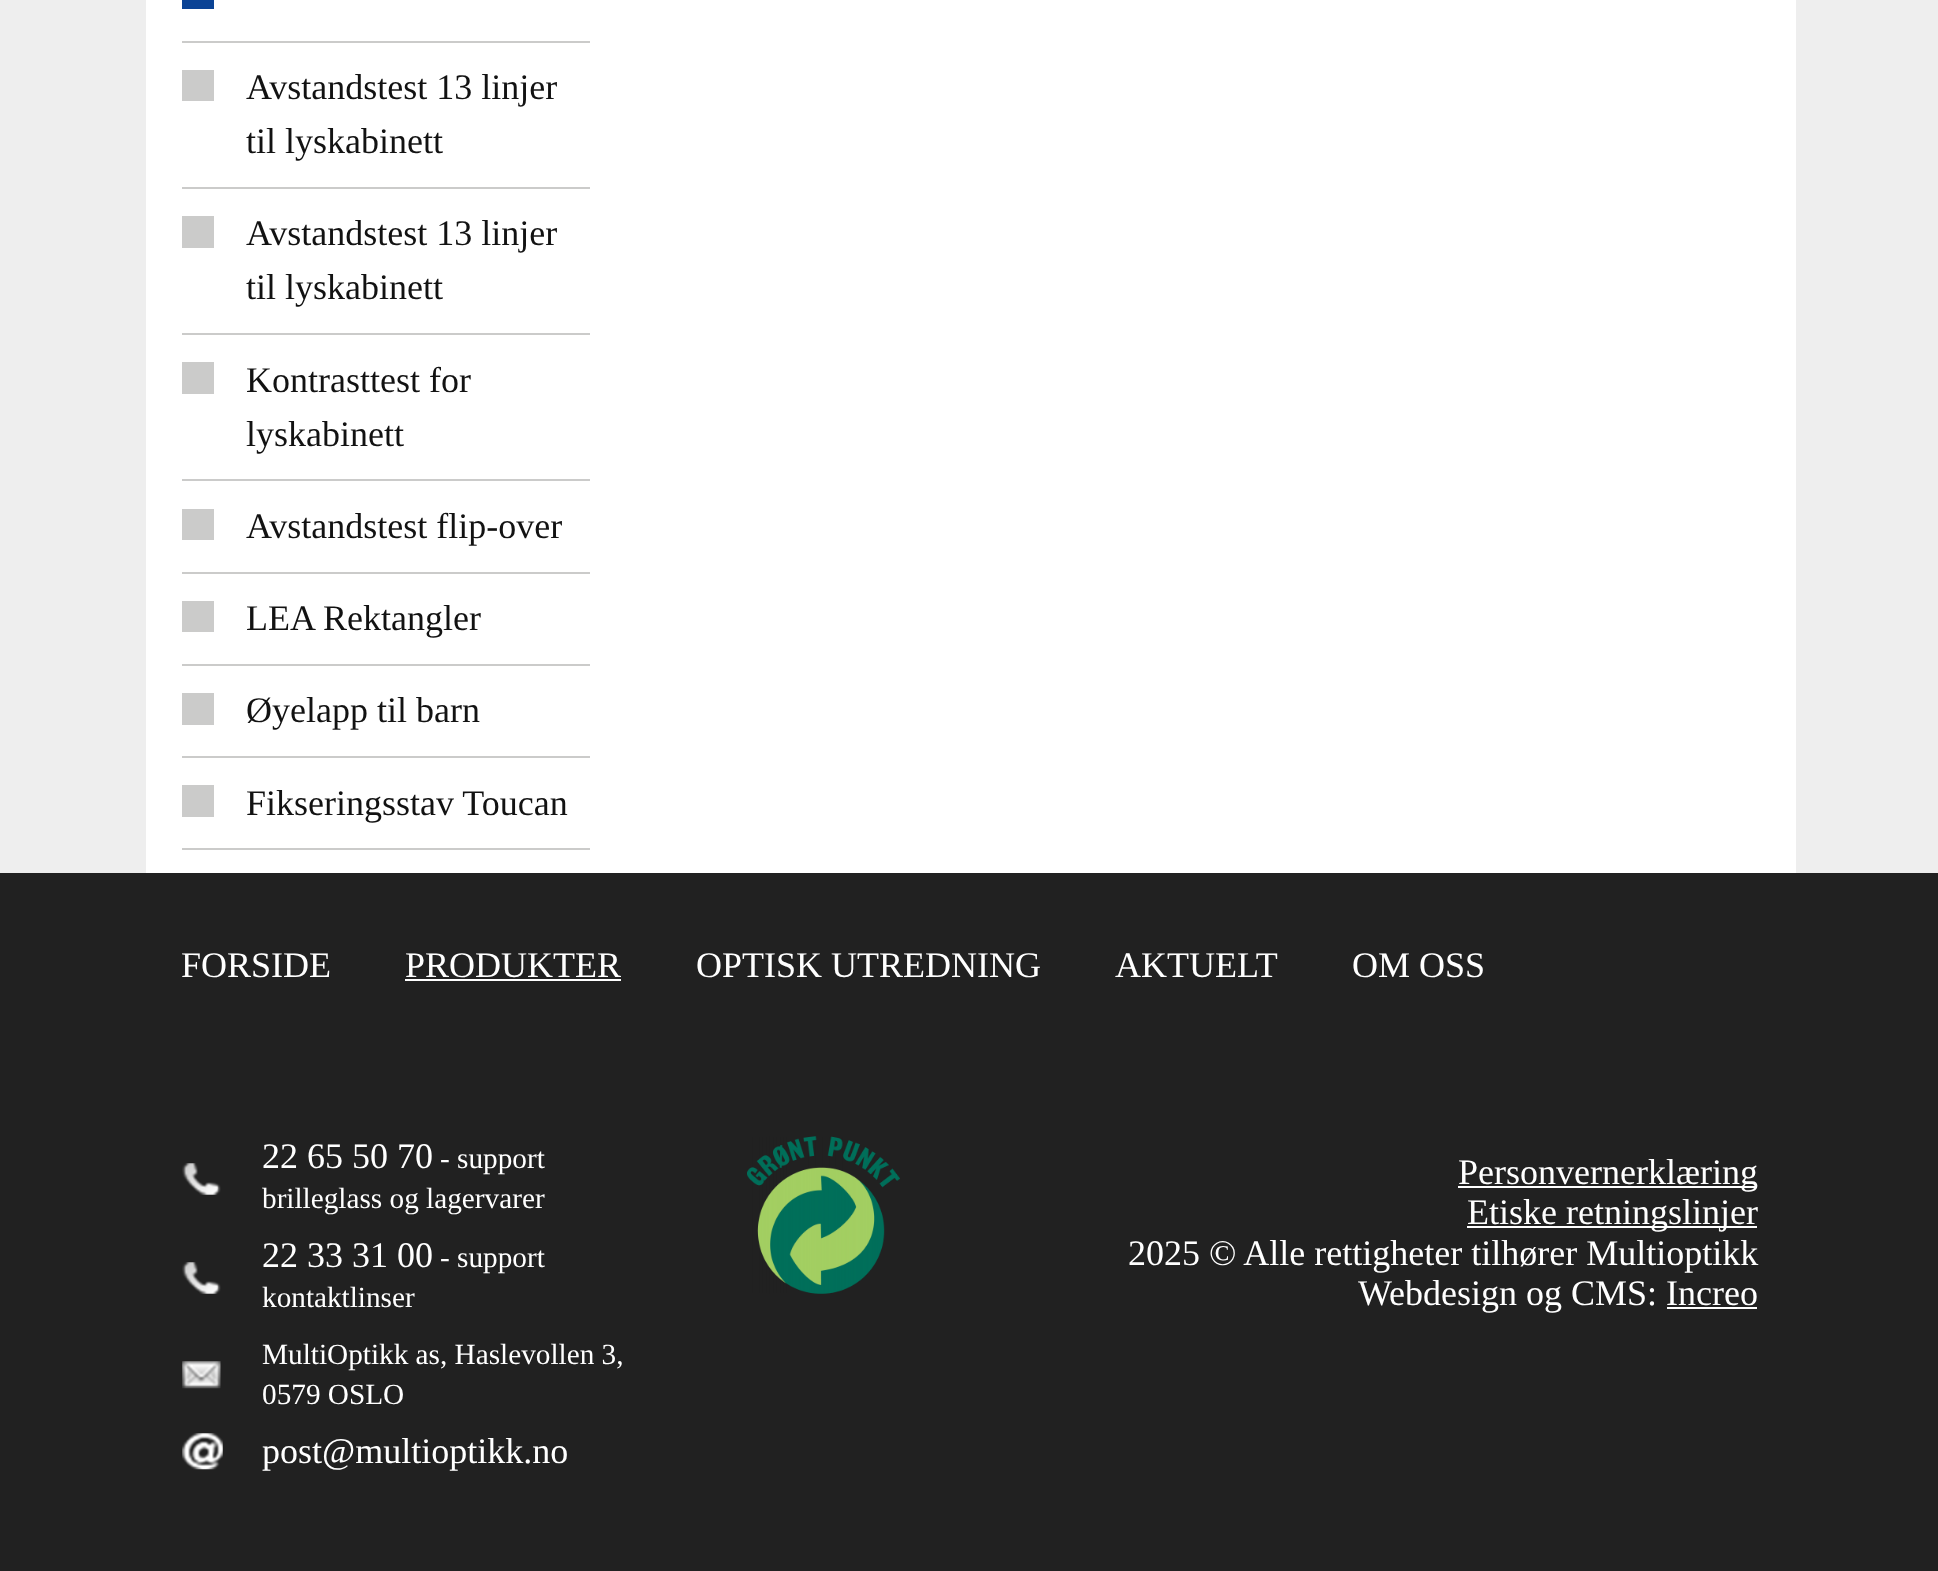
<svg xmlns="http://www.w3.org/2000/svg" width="1938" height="1571">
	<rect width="100%" height="100%" fill="#212121" />
	<rect x="0" y="0" width="1938" height="873" fill="#EEEEEE" />
	<rect x="146" y="0" width="1650" height="873" fill="#FFFFFF" />
	<rect x="182" y="41" width="408" height="2" fill="#CBCBCA" />
	<rect x="182" y="0" width="32" height="9" fill="#0B4395" />
	<rect x="182" y="187" width="408" height="2" fill="#CBCBCA" />
	<rect x="182" y="70" width="32" height="31" fill="#CBCBCA" />
	<g font-family="Liberation Serif" font-size="36" fill="#121212">
		<text x="246" y="99">Avstandstest 13 linjer</text>
		<text x="246" y="153">til lyskabinett</text>
	</g>
	<rect x="182" y="333" width="408" height="2" fill="#CBCBCA" />
	<rect x="182" y="216" width="32" height="32" fill="#CBCBCA" />
	<g font-family="Liberation Serif" font-size="36" fill="#121212">
		<text x="246" y="245">Avstandstest 13 linjer</text>
		<text x="246" y="299">til lyskabinett</text>
	</g>
	<rect x="182" y="479" width="408" height="2" fill="#CBCBCA" />
	<rect x="182" y="362" width="32" height="32" fill="#CBCBCA" />
	<g font-family="Liberation Serif" font-size="36" fill="#121212">
		<text x="246" y="392">Kontrasttest for</text>
		<text x="246" y="446">lyskabinett</text>
	</g>
	<rect x="182" y="572" width="408" height="2" fill="#CBCBCA" />
	<rect x="182" y="509" width="32" height="31" fill="#CBCBCA" />
	<text x="246" y="538" font-family="Liberation Serif" font-size="36" fill="#121212">Avstandstest flip-over</text>
	<rect x="182" y="664" width="408" height="2" fill="#CBCBCA" />
	<rect x="182" y="601" width="32" height="31" fill="#CBCBCA" />
	<text x="246" y="630" font-family="Liberation Serif" font-size="36" fill="#121212">LEA Rektangler</text>
	<rect x="182" y="756" width="408" height="2" fill="#CBCBCA" />
	<rect x="182" y="693" width="32" height="32" fill="#CBCBCA" />
	<text x="246" y="722" font-family="Liberation Serif" font-size="36" fill="#121212">Øyelapp til barn</text>
	<rect x="182" y="848" width="408" height="2" fill="#CBCBCA" />
	<rect x="182" y="785" width="32" height="32" fill="#CBCBCA" />
	<text x="246" y="815" font-family="Liberation Serif" font-size="36" fill="#121212">Fikseringsstav Toucan</text>
	<g font-family="Liberation Serif" font-size="36" fill="#FFFFFF">
		<text x="181" y="977">FORSIDE</text>
		<text x="405" y="977">PRODUKTER</text>
	</g>
	<rect x="405" y="979" width="216" height="2" fill="#FFFFFF" />
	<g font-family="Liberation Serif" font-size="36" fill="#FFFFFF">
		<text x="696" y="977">OPTISK UTREDNING</text>
		<text x="1115" y="977">AKTUELT</text>
		<text x="1352" y="977">OM OSS</text>
	</g>
	<image x="182" y="1163" width="39" height="32" href="assets/img1.png" />
	<text x="262" y="1168" font-family="Liberation Serif" font-size="36" fill="#FFFFFF">22 65 50 70</text>
	<g font-family="Liberation Serif" font-size="29.25" fill="#FFFFFF">
		<text x="440" y="1168">- support</text>
		<text x="262" y="1208">brilleglass og lagervarer</text>
	</g>
	<image x="182" y="1262" width="39" height="32" href="assets/img1.png" />
	<text x="262" y="1267" font-family="Liberation Serif" font-size="36" fill="#FFFFFF">22 33 31 00</text>
	<g font-family="Liberation Serif" font-size="29.25" fill="#FFFFFF">
		<text x="440" y="1267">- support</text>
		<text x="262" y="1307">kontaktlinser</text>
	</g>
	<image x="182" y="1361" width="39" height="28" href="assets/img2.png" />
	<g font-family="Liberation Serif" font-size="29.25" fill="#FFFFFF">
		<text x="262" y="1364">MultiOptikk as, Haslevollen 3,</text>
		<text x="262" y="1404">0579 OSLO</text>
	</g>
	<image x="182" y="1433" width="41" height="37" href="assets/img3.png" />
	<text x="262" y="1463" font-family="Liberation Serif" font-size="36" fill="#FFFFFF">post@multioptikk.no</text>
	<image x="747" y="1136" width="153" height="158" href="assets/img4.png" />
	<rect x="1458" y="1186" width="299" height="2" fill="#FFFFFF" />
	<text x="1458" y="1184" font-family="Liberation Serif" font-size="36" fill="#FFFFFF">Personvernerklæring</text>
	<rect x="1467" y="1226" width="290" height="2" fill="#FFFFFF" />
	<g font-family="Liberation Serif" font-size="36" fill="#FFFFFF">
		<text x="1467" y="1224">Etiske retningslinjer</text>
		<text x="1128" y="1265">2025 © Alle rettigheter tilhører Multioptikk</text>
		<text x="1358" y="1305">Webdesign og CMS: Increo</text>
	</g>
	<rect x="1667" y="1307" width="90" height="2" fill="#FFFFFF" />
</svg>
